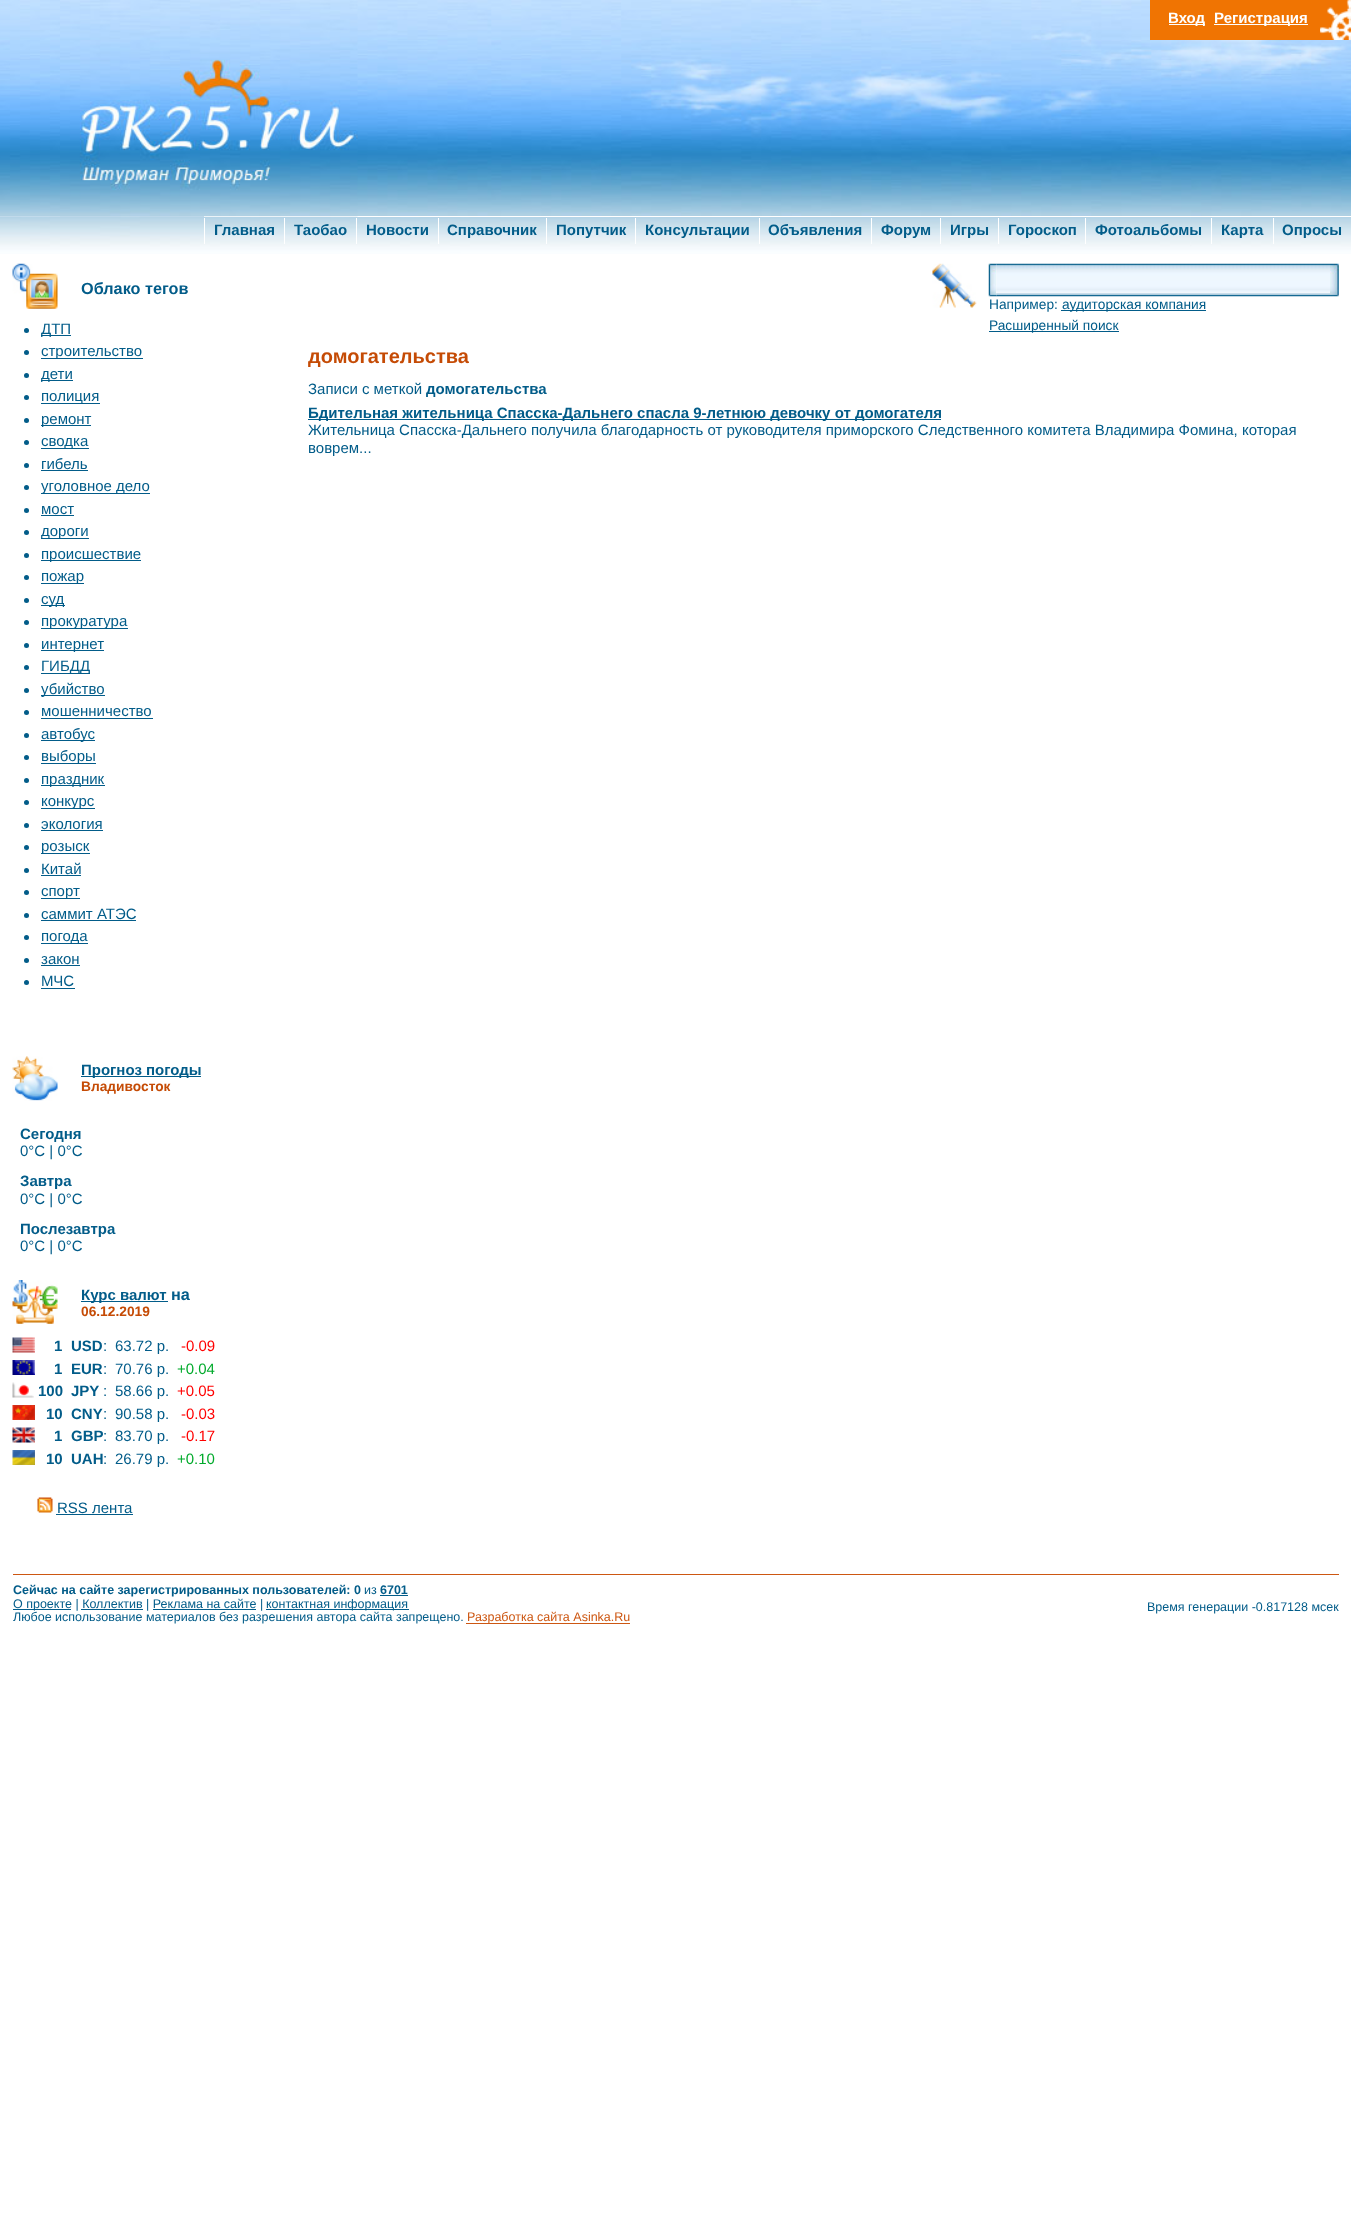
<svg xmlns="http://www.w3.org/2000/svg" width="1351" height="2230">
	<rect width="100%" height="100%" fill="#FFFFFF" />
	<image x="0" y="0" width="622" height="217" href="assets/img3.png" />
	<image x="0" y="216" width="1351" height="38" href="assets/img5.png" />
	<rect x="204" y="216" width="1147" height="1" fill="#FFFFFF" />
	<image x="60" y="0" width="298" height="217" href="assets/img1.png" />
	<image x="621" y="0" width="730" height="216" href="assets/img4.png" />
	<rect x="1150" y="0" width="170" height="40" fill="#F07402" />
	<image x="1320" y="0" width="31" height="40" href="assets/img2.png" />
	<rect x="1169" y="24" width="36" height="1" fill="#FFFFFF" />
	<text x="1168" y="23" font-family="Liberation Sans" font-size="15" font-weight="700" fill="#FFFFFF">Вход</text>
	<rect x="1214" y="24" width="94" height="1" fill="#FFFFFF" />
	<text x="1214" y="23" font-family="Liberation Sans" font-size="15" font-weight="700" fill="#FFFFFF">Регистрация</text>
	<rect x="204" y="218" width="1" height="26" fill="#FFFFFF" />
	<text x="214" y="235" font-family="Liberation Sans" font-size="15" font-weight="700" fill="#025C89">Главная</text>
	<rect x="284" y="218" width="1" height="26" fill="#FFFFFF" />
	<text x="294" y="235" font-family="Liberation Sans" font-size="15" font-weight="700" fill="#025C89">Таобао</text>
	<rect x="356" y="218" width="1" height="26" fill="#FFFFFF" />
	<text x="366" y="235" font-family="Liberation Sans" font-size="15" font-weight="700" fill="#025C89">Новости</text>
	<rect x="438" y="218" width="1" height="26" fill="#FFFFFF" />
	<text x="447" y="235" font-family="Liberation Sans" font-size="15" font-weight="700" fill="#025C89">Справочник</text>
	<rect x="546" y="218" width="1" height="26" fill="#FFFFFF" />
	<text x="556" y="235" font-family="Liberation Sans" font-size="15" font-weight="700" fill="#025C89">Попутчик</text>
	<rect x="635" y="218" width="1" height="26" fill="#FFFFFF" />
	<text x="645" y="235" font-family="Liberation Sans" font-size="15" font-weight="700" fill="#025C89">Консультации</text>
	<rect x="759" y="218" width="1" height="26" fill="#FFFFFF" />
	<text x="768" y="235" font-family="Liberation Sans" font-size="15" font-weight="700" fill="#025C89">Объявления</text>
	<rect x="871" y="218" width="1" height="26" fill="#FFFFFF" />
	<text x="881" y="235" font-family="Liberation Sans" font-size="15" font-weight="700" fill="#025C89">Форум</text>
	<rect x="940" y="218" width="1" height="26" fill="#FFFFFF" />
	<text x="950" y="235" font-family="Liberation Sans" font-size="15" font-weight="700" fill="#025C89">Игры</text>
	<rect x="998" y="218" width="1" height="26" fill="#FFFFFF" />
	<text x="1008" y="235" font-family="Liberation Sans" font-size="15" font-weight="700" fill="#025C89">Гороскоп</text>
	<rect x="1085" y="218" width="1" height="26" fill="#FFFFFF" />
	<text x="1095" y="235" font-family="Liberation Sans" font-size="15" font-weight="700" fill="#025C89">Фотоальбомы</text>
	<rect x="1211" y="218" width="1" height="26" fill="#FFFFFF" />
	<text x="1221" y="235" font-family="Liberation Sans" font-size="15" font-weight="700" fill="#025C89">Карта</text>
	<rect x="1273" y="218" width="1" height="26" fill="#FFFFFF" />
	<text x="1282" y="235" font-family="Liberation Sans" font-size="15" font-weight="700" fill="#025C89">Опросы</text>
	<image x="12" y="263" width="46" height="46" href="assets/img6.png" />
	<text x="81" y="294" font-family="Liberation Sans" font-size="16.25" font-weight="700" fill="#025C89">Облако тегов</text>
	<circle cx="26.5" cy="330.5" r="2.5" fill="#025C89" />
	<rect x="41" y="335" width="30" height="1" fill="#025C89" />
	<text x="41" y="334" font-family="Liberation Sans" font-size="15" fill="#025C89">ДТП</text>
	<circle cx="26.5" cy="352.5" r="2.5" fill="#025C89" />
	<rect x="41" y="358" width="102" height="1" fill="#025C89" />
	<text x="41" y="356" font-family="Liberation Sans" font-size="15" fill="#025C89">строительство</text>
	<circle cx="26.5" cy="375.5" r="2.5" fill="#025C89" />
	<rect x="41" y="380" width="32" height="1" fill="#025C89" />
	<text x="41" y="379" font-family="Liberation Sans" font-size="15" fill="#025C89">дети</text>
	<circle cx="26.5" cy="397.5" r="2.5" fill="#025C89" />
	<rect x="41" y="403" width="59" height="1" fill="#025C89" />
	<text x="41" y="401" font-family="Liberation Sans" font-size="15" fill="#025C89">полиция</text>
	<circle cx="26.5" cy="420.5" r="2.5" fill="#025C89" />
	<rect x="41" y="425" width="50" height="1" fill="#025C89" />
	<text x="41" y="424" font-family="Liberation Sans" font-size="15" fill="#025C89">ремонт</text>
	<circle cx="26.5" cy="442.5" r="2.5" fill="#025C89" />
	<rect x="41" y="448" width="48" height="1" fill="#025C89" />
	<text x="41" y="446" font-family="Liberation Sans" font-size="15" fill="#025C89">сводка</text>
	<circle cx="26.5" cy="465.5" r="2.5" fill="#025C89" />
	<text x="41" y="469" font-family="Liberation Sans" font-size="15" fill="#025C89">гибель</text>
	<rect x="41" y="470" width="47" height="1" fill="#025C89" />
	<circle cx="26.5" cy="487.5" r="2.5" fill="#025C89" />
	<rect x="41" y="493" width="109" height="1" fill="#025C89" />
	<text x="41" y="491" font-family="Liberation Sans" font-size="15" fill="#025C89">уголовное дело</text>
	<circle cx="26.5" cy="510.5" r="2.5" fill="#025C89" />
	<text x="41" y="514" font-family="Liberation Sans" font-size="15" fill="#025C89">мост</text>
	<rect x="41" y="515" width="33" height="1" fill="#025C89" />
	<circle cx="26.5" cy="532.5" r="2.5" fill="#025C89" />
	<rect x="41" y="538" width="48" height="1" fill="#025C89" />
	<text x="41" y="536" font-family="Liberation Sans" font-size="15" fill="#025C89">дороги</text>
	<circle cx="26.5" cy="555.5" r="2.5" fill="#025C89" />
	<rect x="41" y="560" width="100" height="1" fill="#025C89" />
	<text x="41" y="559" font-family="Liberation Sans" font-size="15" fill="#025C89">происшествие</text>
	<circle cx="26.5" cy="577.5" r="2.5" fill="#025C89" />
	<rect x="41" y="583" width="43" height="1" fill="#025C89" />
	<text x="41" y="581" font-family="Liberation Sans" font-size="15" fill="#025C89">пожар</text>
	<circle cx="26.5" cy="600.5" r="2.5" fill="#025C89" />
	<rect x="41" y="605" width="24" height="1" fill="#025C89" />
	<text x="41" y="604" font-family="Liberation Sans" font-size="15" fill="#025C89">суд</text>
	<circle cx="26.5" cy="622.5" r="2.5" fill="#025C89" />
	<rect x="41" y="628" width="87" height="1" fill="#025C89" />
	<text x="41" y="626" font-family="Liberation Sans" font-size="15" fill="#025C89">прокуратура</text>
	<circle cx="26.5" cy="645.5" r="2.5" fill="#025C89" />
	<rect x="41" y="650" width="63" height="1" fill="#025C89" />
	<text x="41" y="649" font-family="Liberation Sans" font-size="15" fill="#025C89">интернет</text>
	<circle cx="26.5" cy="667.5" r="2.5" fill="#025C89" />
	<rect x="41" y="673" width="49" height="1" fill="#025C89" />
	<text x="41" y="671" font-family="Liberation Sans" font-size="15" fill="#025C89">ГИБДД</text>
	<circle cx="26.5" cy="690.5" r="2.5" fill="#025C89" />
	<rect x="41" y="695" width="64" height="1" fill="#025C89" />
	<text x="41" y="694" font-family="Liberation Sans" font-size="15" fill="#025C89">убийство</text>
	<circle cx="26.5" cy="712.5" r="2.5" fill="#025C89" />
	<text x="41" y="716" font-family="Liberation Sans" font-size="15" fill="#025C89">мошенничество</text>
	<rect x="41" y="718" width="112" height="1" fill="#025C89" />
	<circle cx="26.5" cy="735.5" r="2.5" fill="#025C89" />
	<rect x="41" y="740" width="54" height="1" fill="#025C89" />
	<text x="41" y="739" font-family="Liberation Sans" font-size="15" fill="#025C89">автобус</text>
	<circle cx="26.5" cy="757.5" r="2.5" fill="#025C89" />
	<rect x="41" y="763" width="55" height="1" fill="#025C89" />
	<text x="41" y="761" font-family="Liberation Sans" font-size="15" fill="#025C89">выборы</text>
	<circle cx="26.5" cy="780.5" r="2.5" fill="#025C89" />
	<rect x="41" y="785" width="64" height="1" fill="#025C89" />
	<text x="41" y="784" font-family="Liberation Sans" font-size="15" fill="#025C89">праздник</text>
	<circle cx="26.5" cy="802.5" r="2.5" fill="#025C89" />
	<rect x="41" y="808" width="54" height="1" fill="#025C89" />
	<text x="41" y="806" font-family="Liberation Sans" font-size="15" fill="#025C89">конкурс</text>
	<circle cx="26.5" cy="825.5" r="2.5" fill="#025C89" />
	<text x="41" y="829" font-family="Liberation Sans" font-size="15" fill="#025C89">экология</text>
	<rect x="41" y="830" width="62" height="1" fill="#025C89" />
	<circle cx="26.5" cy="847.5" r="2.5" fill="#025C89" />
	<rect x="41" y="853" width="49" height="1" fill="#025C89" />
	<text x="41" y="851" font-family="Liberation Sans" font-size="15" fill="#025C89">розыск</text>
	<circle cx="26.5" cy="870.5" r="2.5" fill="#025C89" />
	<text x="41" y="874" font-family="Liberation Sans" font-size="15" fill="#025C89">Китай</text>
	<rect x="41" y="875" width="40" height="1" fill="#025C89" />
	<circle cx="26.5" cy="892.5" r="2.5" fill="#025C89" />
	<rect x="41" y="898" width="39" height="1" fill="#025C89" />
	<text x="41" y="896" font-family="Liberation Sans" font-size="15" fill="#025C89">спорт</text>
	<circle cx="26.5" cy="915.5" r="2.5" fill="#025C89" />
	<text x="41" y="919" font-family="Liberation Sans" font-size="15" fill="#025C89">саммит АТЭС</text>
	<rect x="41" y="920" width="95" height="1" fill="#025C89" />
	<circle cx="26.5" cy="937.5" r="2.5" fill="#025C89" />
	<rect x="41" y="943" width="47" height="1" fill="#025C89" />
	<text x="41" y="941" font-family="Liberation Sans" font-size="15" fill="#025C89">погода</text>
	<circle cx="26.5" cy="960.5" r="2.5" fill="#025C89" />
	<text x="41" y="964" font-family="Liberation Sans" font-size="15" fill="#025C89">закон</text>
	<rect x="41" y="965" width="39" height="1" fill="#025C89" />
	<circle cx="26.5" cy="982.5" r="2.5" fill="#025C89" />
	<text x="41" y="986" font-family="Liberation Sans" font-size="15" fill="#025C89">МЧС</text>
	<rect x="41" y="988" width="34" height="1" fill="#025C89" />
	<image x="12" y="1056" width="46" height="45" href="assets/img7.png" />
	<rect x="81" y="1076" width="120" height="1" fill="#025C89" />
	<text x="81" y="1075" font-family="Liberation Sans" font-size="15" font-weight="700" fill="#025C89">Прогноз погоды</text>
	<text x="81" y="1091" font-family="Liberation Sans" font-size="13.75" font-weight="700" fill="#C54B05">Владивосток</text>
	<text x="20" y="1139" font-family="Liberation Sans" font-size="15" font-weight="700" fill="#025C89">Сегодня</text>
	<text x="20" y="1156" font-family="Liberation Sans" font-size="15" fill="#025C89">0°C | 0°C</text>
	<text x="20" y="1186" font-family="Liberation Sans" font-size="15" font-weight="700" fill="#025C89">Завтра</text>
	<text x="20" y="1204" font-family="Liberation Sans" font-size="15" fill="#025C89">0°C | 0°C</text>
	<text x="20" y="1234" font-family="Liberation Sans" font-size="15" font-weight="700" fill="#025C89">Послезавтра</text>
	<text x="20" y="1251" font-family="Liberation Sans" font-size="15" fill="#025C89">0°C | 0°C</text>
	<image x="12" y="1280" width="46" height="44" href="assets/img8.png" />
	<rect x="81" y="1301" width="87" height="1" fill="#025C89" />
	<text x="81" y="1300" font-family="Liberation Sans" font-size="15" font-weight="700" fill="#025C89">Курс валют</text>
	<text x="171" y="1300" font-family="Liberation Sans" font-size="16.25" font-weight="700" fill="#025C89">на</text>
	<text x="81" y="1316" font-family="Liberation Sans" font-size="13.75" font-weight="700" fill="#C54B05">06.12.2019</text>
	<image x="12" y="1337" width="23" height="16" href="assets/img9.png" />
	<g font-family="Liberation Sans" font-size="15" font-weight="700" fill="#025C89">
		<text x="54" y="1351">1</text>
		<text x="71" y="1351">USD</text>
	</g>
	<g font-family="Liberation Sans" font-size="15" fill="#025C89">
		<text x="103" y="1351">:</text>
		<text x="115" y="1351">63.72 р.</text>
	</g>
	<text x="181" y="1351" font-family="Liberation Sans" font-size="15" fill="#FF0000">-0.09</text>
	<image x="12" y="1360" width="23" height="15" href="assets/img10.png" />
	<g font-family="Liberation Sans" font-size="15" font-weight="700" fill="#025C89">
		<text x="54" y="1374">1</text>
		<text x="71" y="1374">EUR</text>
	</g>
	<g font-family="Liberation Sans" font-size="15" fill="#025C89">
		<text x="103" y="1374">:</text>
		<text x="115" y="1374">70.76 р.</text>
	</g>
	<text x="177" y="1374" font-family="Liberation Sans" font-size="15" fill="#00AA2B">+0.04</text>
	<image x="12" y="1382" width="22" height="16" href="assets/img11.png" />
	<g font-family="Liberation Sans" font-size="15" font-weight="700" fill="#025C89">
		<text x="38" y="1396">100</text>
		<text x="71" y="1396">JPY</text>
	</g>
	<g font-family="Liberation Sans" font-size="15" fill="#025C89">
		<text x="103" y="1396">:</text>
		<text x="115" y="1396">58.66 р.</text>
	</g>
	<text x="177" y="1396" font-family="Liberation Sans" font-size="15" fill="#FF0000">+0.05</text>
	<image x="12" y="1405" width="23" height="15" href="assets/img12.png" />
	<g font-family="Liberation Sans" font-size="15" font-weight="700" fill="#025C89">
		<text x="46" y="1419">10</text>
		<text x="71" y="1419">CNY</text>
	</g>
	<g font-family="Liberation Sans" font-size="15" fill="#025C89">
		<text x="103" y="1419">:</text>
		<text x="115" y="1419">90.58 р.</text>
	</g>
	<text x="181" y="1419" font-family="Liberation Sans" font-size="15" fill="#FF0000">-0.03</text>
	<image x="12" y="1427" width="23" height="16" href="assets/img13.png" />
	<g font-family="Liberation Sans" font-size="15" font-weight="700" fill="#025C89">
		<text x="54" y="1441">1</text>
		<text x="71" y="1441">GBP</text>
	</g>
	<g font-family="Liberation Sans" font-size="15" fill="#025C89">
		<text x="103" y="1441">:</text>
		<text x="115" y="1441">83.70 р.</text>
	</g>
	<text x="181" y="1441" font-family="Liberation Sans" font-size="15" fill="#FF0000">-0.17</text>
	<image x="12" y="1450" width="23" height="15" href="assets/img14.png" />
	<g font-family="Liberation Sans" font-size="15" font-weight="700" fill="#025C89">
		<text x="46" y="1464">10</text>
		<text x="71" y="1464">UAH</text>
	</g>
	<g font-family="Liberation Sans" font-size="15" fill="#025C89">
		<text x="103" y="1464">:</text>
		<text x="115" y="1464">26.79 р.</text>
	</g>
	<text x="177" y="1464" font-family="Liberation Sans" font-size="15" fill="#00AA2B">+0.10</text>
	<image x="37" y="1497" width="16" height="16" href="assets/img15.png" />
	<text x="57" y="1513" font-family="Liberation Sans" font-size="15" fill="#025C89">RSS лента</text>
	<rect x="56" y="1514" width="77" height="1" fill="#025C89" />
	<image x="932" y="263" width="45" height="45" href="assets/img16.png" />
	<image x="996" y="263" width="334" height="34" href="assets/img18.png" />
	<image x="988" y="263" width="9" height="34" href="assets/img17.png" />
	<rect x="996" y="270" width="334" height="23" fill="#F9F9F9" />
	<image x="996" y="270" width="334" height="23" href="assets/img19.png" />
	<image x="1330" y="263" width="9" height="34" href="assets/img20.png" />
	<text x="989" y="309" font-family="Liberation Sans" font-size="13.75" fill="#025C89">Например:</text>
	<rect x="1061" y="310" width="145" height="1" fill="#025C89" />
	<text x="1062" y="309" font-family="Liberation Sans" font-size="13.75" fill="#025C89">аудиторская компания</text>
	<rect x="989" y="331" width="130" height="1" fill="#025C89" />
	<text x="989" y="330" font-family="Liberation Sans" font-size="13.75" fill="#025C89">Расширенный поиск</text>
	<text x="308" y="363" font-family="Liberation Sans" font-size="20" font-weight="700" fill="#C54B05">домогательства</text>
	<text x="308" y="394" font-family="Liberation Sans" font-size="15" fill="#025C89">Записи с меткой</text>
	<text x="426" y="394" font-family="Liberation Sans" font-size="15" font-weight="700" fill="#025C89">домогательства</text>
	<rect x="308" y="419" width="633" height="1" fill="#025C89" />
	<text x="308" y="418" font-family="Liberation Sans" font-size="15" font-weight="700" fill="#025C89">Бдительная жительница Спасска-Дальнего спасла 9-летнюю девочку от домогателя</text>
	<g font-family="Liberation Sans" font-size="15" fill="#025C89">
		<text x="308" y="435">Жительница Спасска-Дальнего получила благодарность от руководителя приморского Следственного комитета Владимира Фомина, которая</text>
		<text x="308" y="453">воврем...</text>
	</g>
	<rect x="13" y="1574" width="1326" height="1" fill="#CD5712" />
	<text x="13" y="1594" font-family="Liberation Sans" font-size="12.5" font-weight="700" fill="#025C89">Сейчас на сайте зарегистрированных пользователей: 0</text>
	<text x="364" y="1594" font-family="Liberation Sans" font-size="12.5" fill="#025C89">из</text>
	<text x="380" y="1594" font-family="Liberation Sans" font-size="12.5" font-weight="700" fill="#025C89">6701</text>
	<rect x="380" y="1595" width="28" height="1" fill="#025C89" />
	<rect x="13" y="1609" width="58" height="1" fill="#025C89" />
	<text x="13" y="1608" font-family="Liberation Sans" font-size="12.5" fill="#025C89">О проекте | Коллектив | Реклама на сайте |</text>
	<rect x="266" y="1609" width="143" height="1" fill="#025C89" />
	<text x="266" y="1608" font-family="Liberation Sans" font-size="12.5" fill="#025C89">контактная информация</text>
	<rect x="81" y="1609" width="62" height="1" fill="#025C89" />
	<rect x="153" y="1609" width="103" height="1" fill="#025C89" />
	<text x="13" y="1621" font-family="Liberation Sans" font-size="12.5" fill="#025C89">Любое использование материалов без разрешения автора сайта запрещено.</text>
	<rect x="466" y="1623" width="164" height="1" fill="#CD5712" />
	<text x="467" y="1621" font-family="Liberation Sans" font-size="12.5" fill="#CD5712">Разработка сайта Asinka.Ru</text>
	<text x="1147" y="1611" font-family="Liberation Sans" font-size="12.5" fill="#025C89">Время генерации -0.817128 мсек</text>
</svg>
